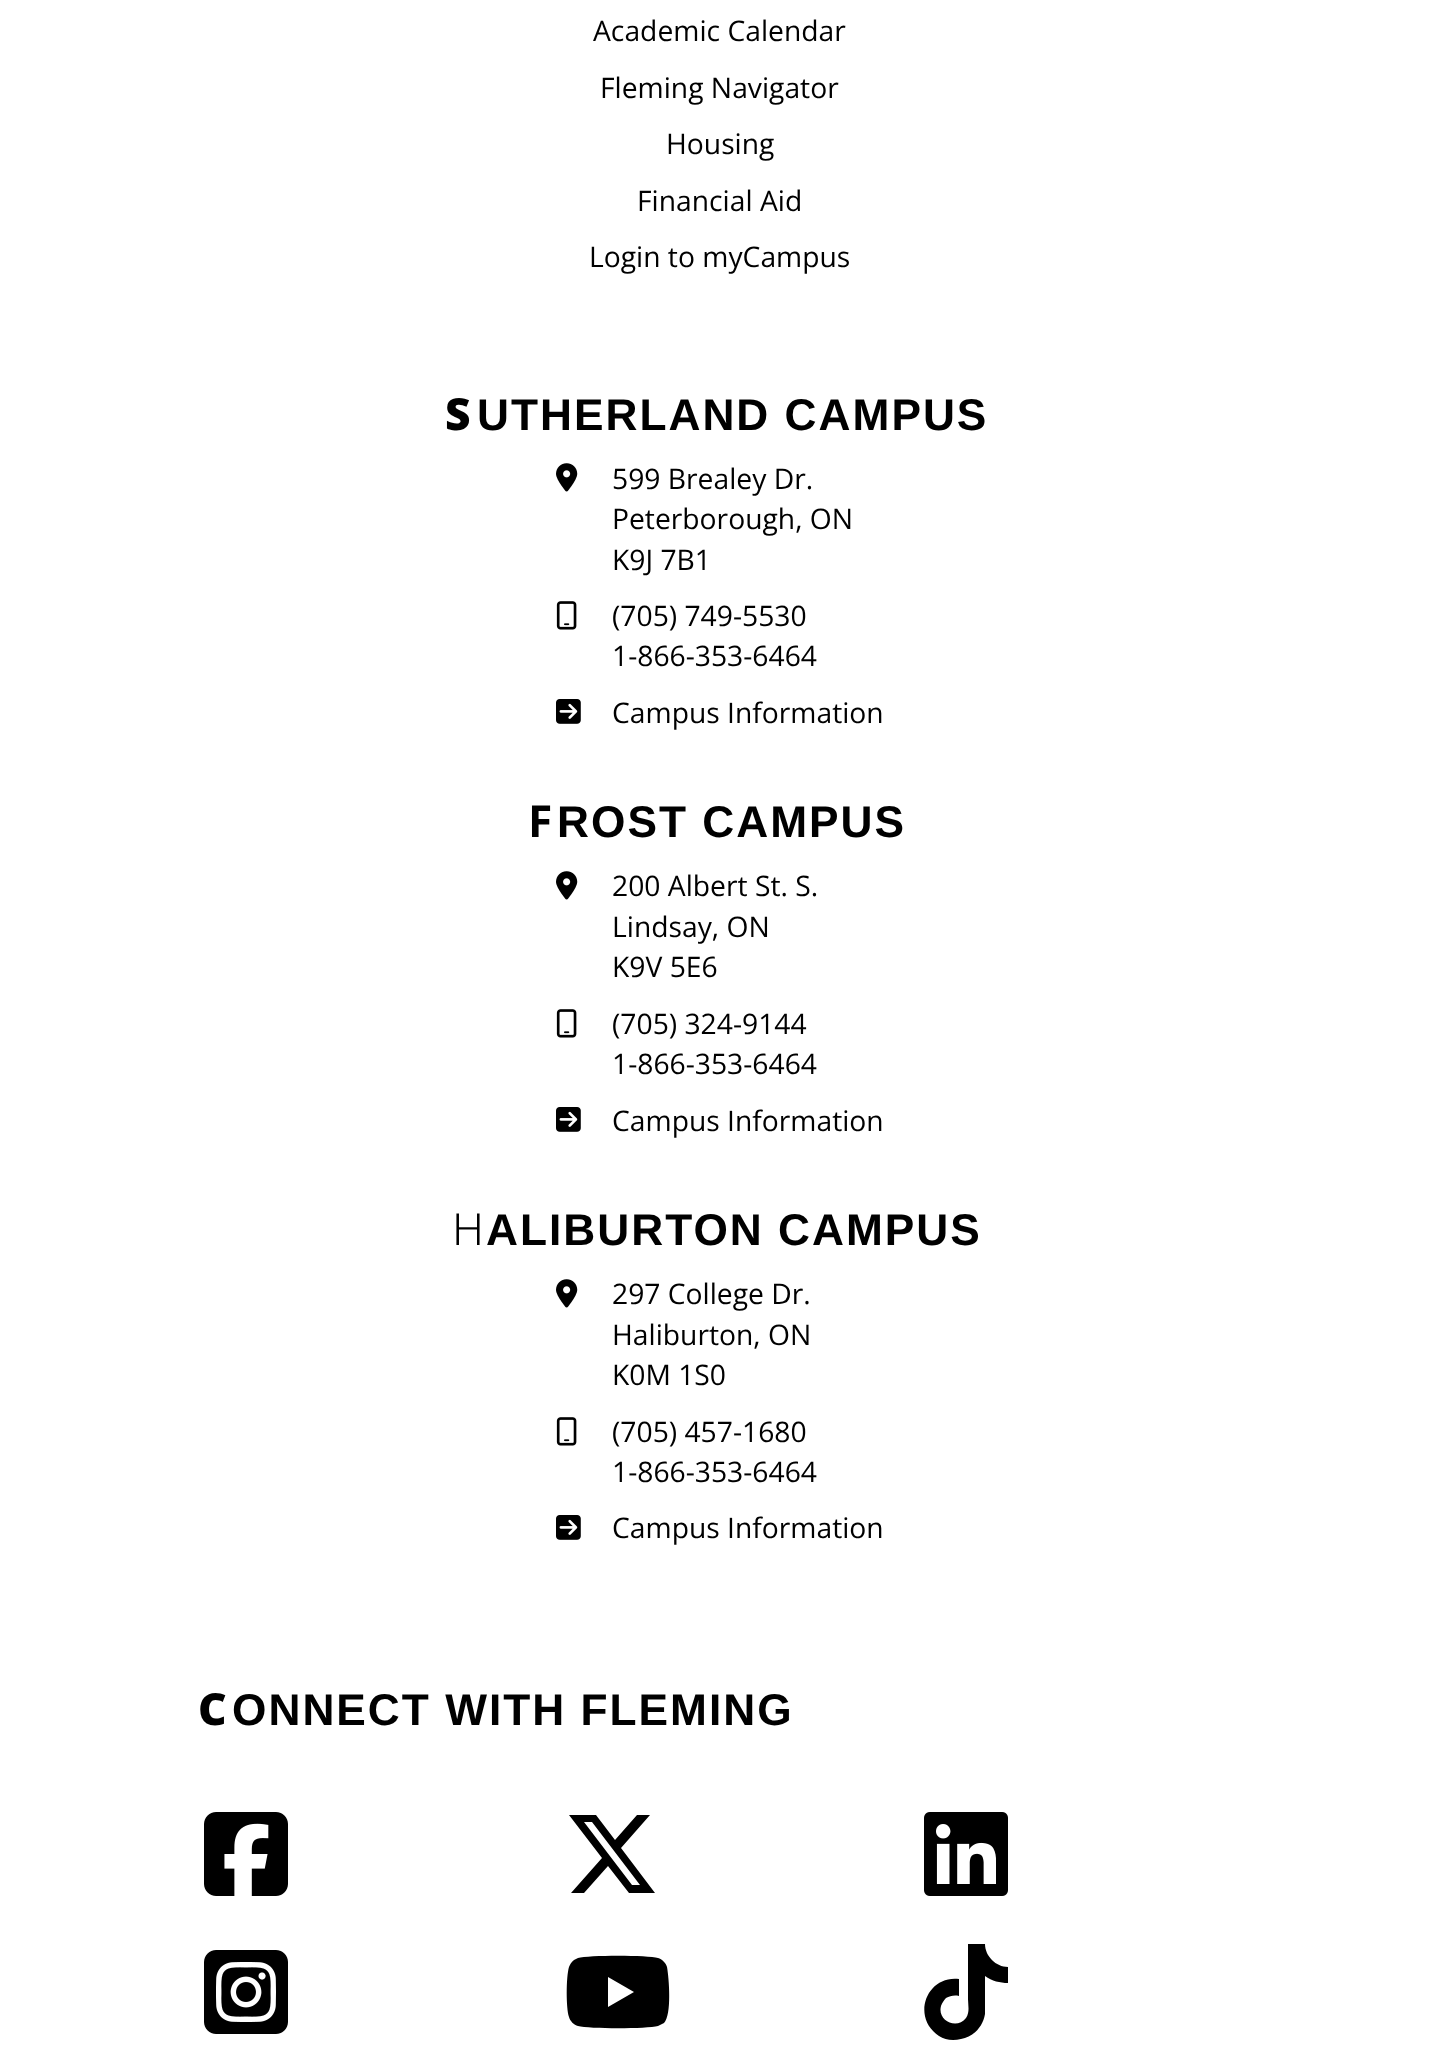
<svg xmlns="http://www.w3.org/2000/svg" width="1440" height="2066">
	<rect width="100%" height="100%" fill="#FFFFFF" />
	<g font-family="Open Sans" font-size="28.25" fill="#000000">
		<text x="593" y="41">Academic Calendar</text>
		<text x="600" y="98">Fleming Navigator</text>
		<text x="666" y="154">Housing</text>
		<text x="637" y="211">Financial Aid</text>
		<text x="589" y="267">Login to myCampus</text>
	</g>
	<text x="445" y="430" font-family="Noto Sans" font-size="44.25" font-weight="900" letter-spacing="2" fill="#000000">S</text>
	<text x="477" y="430" font-family="Liberation Sans" font-size="44.25" font-weight="700" letter-spacing="2" fill="#000000">UTHERLAND CAMPUS</text>
	<image x="556" y="463" width="22" height="29" href="assets/img1.png" />
	<g font-family="Open Sans" font-size="28.25" fill="#000000">
		<text x="612" y="489">599 Brealey Dr.</text>
		<text x="612" y="529">Peterborough, ON</text>
		<text x="612" y="570">K9J 7B1</text>
	</g>
	<image x="556" y="601" width="21" height="29" href="assets/img2.png" />
	<g font-family="Open Sans" font-size="28.25" fill="#000000">
		<text x="612" y="626">(705) 749-5530</text>
		<text x="612" y="666">1-866-353-6464</text>
	</g>
	<image x="556" y="699" width="25" height="25" href="assets/img3.png" />
	<text x="612" y="723" font-family="Open Sans" font-size="28.25" fill="#000000">Campus Information</text>
	<text x="528" y="837" font-family="Noto Sans" font-size="44.25" font-weight="700" letter-spacing="2" fill="#000000">F</text>
	<text x="557" y="837" font-family="Liberation Sans" font-size="44.25" font-weight="700" letter-spacing="2" fill="#000000">ROST CAMPUS</text>
	<image x="556" y="871" width="22" height="29" href="assets/img1.png" />
	<g font-family="Open Sans" font-size="28.25" fill="#000000">
		<text x="612" y="896">200 Albert St. S.</text>
		<text x="612" y="937">Lindsay, ON</text>
		<text x="612" y="977">K9V 5E6</text>
	</g>
	<image x="556" y="1009" width="21" height="29" href="assets/img2.png" />
	<g font-family="Open Sans" font-size="28.25" fill="#000000">
		<text x="612" y="1034">(705) 324-9144</text>
		<text x="612" y="1074">1-866-353-6464</text>
	</g>
	<image x="556" y="1107" width="25" height="25" href="assets/img3.png" />
	<text x="612" y="1131" font-family="Open Sans" font-size="28.25" fill="#000000">Campus Information</text>
	<text x="452" y="1245" font-family="Noto Sans" font-size="44.25" font-weight="300" letter-spacing="2" fill="#000000">H</text>
	<text x="486" y="1245" font-family="Liberation Sans" font-size="44.25" font-weight="700" letter-spacing="2" fill="#000000">ALIBURTON CAMPUS</text>
	<image x="556" y="1279" width="22" height="29" href="assets/img1.png" />
	<g font-family="Open Sans" font-size="28.25" fill="#000000">
		<text x="612" y="1304">297 College Dr.</text>
		<text x="612" y="1345">Haliburton, ON</text>
		<text x="612" y="1385">K0M 1S0</text>
	</g>
	<image x="556" y="1417" width="21" height="29" href="assets/img2.png" />
	<g font-family="Open Sans" font-size="28.25" fill="#000000">
		<text x="612" y="1442">(705) 457-1680</text>
		<text x="612" y="1482">1-866-353-6464</text>
	</g>
	<image x="556" y="1515" width="25" height="25" href="assets/img3.png" />
	<text x="612" y="1538" font-family="Open Sans" font-size="28.25" fill="#000000">Campus Information</text>
	<text x="198" y="1725" font-family="Noto Sans" font-size="44.25" font-weight="900" letter-spacing="2" fill="#000000">C</text>
	<text x="232" y="1725" font-family="Liberation Sans" font-size="44.25" font-weight="700" letter-spacing="2" fill="#000000">ONNECT WITH FLEMING</text>
	<image x="204" y="1812" width="84" height="84" href="assets/img4.png" />
	<path d="M637 1815H650H637H650L621 1848L655 1893H629L608 1866L584 1893H571L602 1858L569 1815H596L615 1840ZM632 1885H640H632H640L592 1822H584Z" fill="#000000" />
	<image x="924" y="1812" width="84" height="84" href="assets/img5.png" />
	<image x="204" y="1950" width="84" height="84" href="assets/img6.png" />
	<path d="M667 1967C666 1963 662 1959 658 1958C648 1955 588 1955 578 1958L574 1960C571 1962 570 1965 569 1967C566 1977 566 2008 569 2017C570 2021 574 2025 578 2026C589 2029 647 2029 658 2026C660 2025 662 2024 664 2023C672 2015 669 1978 667 1967ZM608 2007V1977V2007V1977L634 1992Z" fill="#000000" />
	<path d="M1008 1983C1000 1983 992 1981 985 1976V2014C983 2027 973 2037 961 2039C953 2041 945 2040 939 2036C911 2018 926 1975 959 1979V1996C954 1995 950 1996 946 1998C944 2000 942 2003 941 2006C937 2021 957 2030 966 2018C970 2012 968 2005 968 1999V1944H985C985 1956 996 1967 1008 1967Z" fill="#000000" />
</svg>
